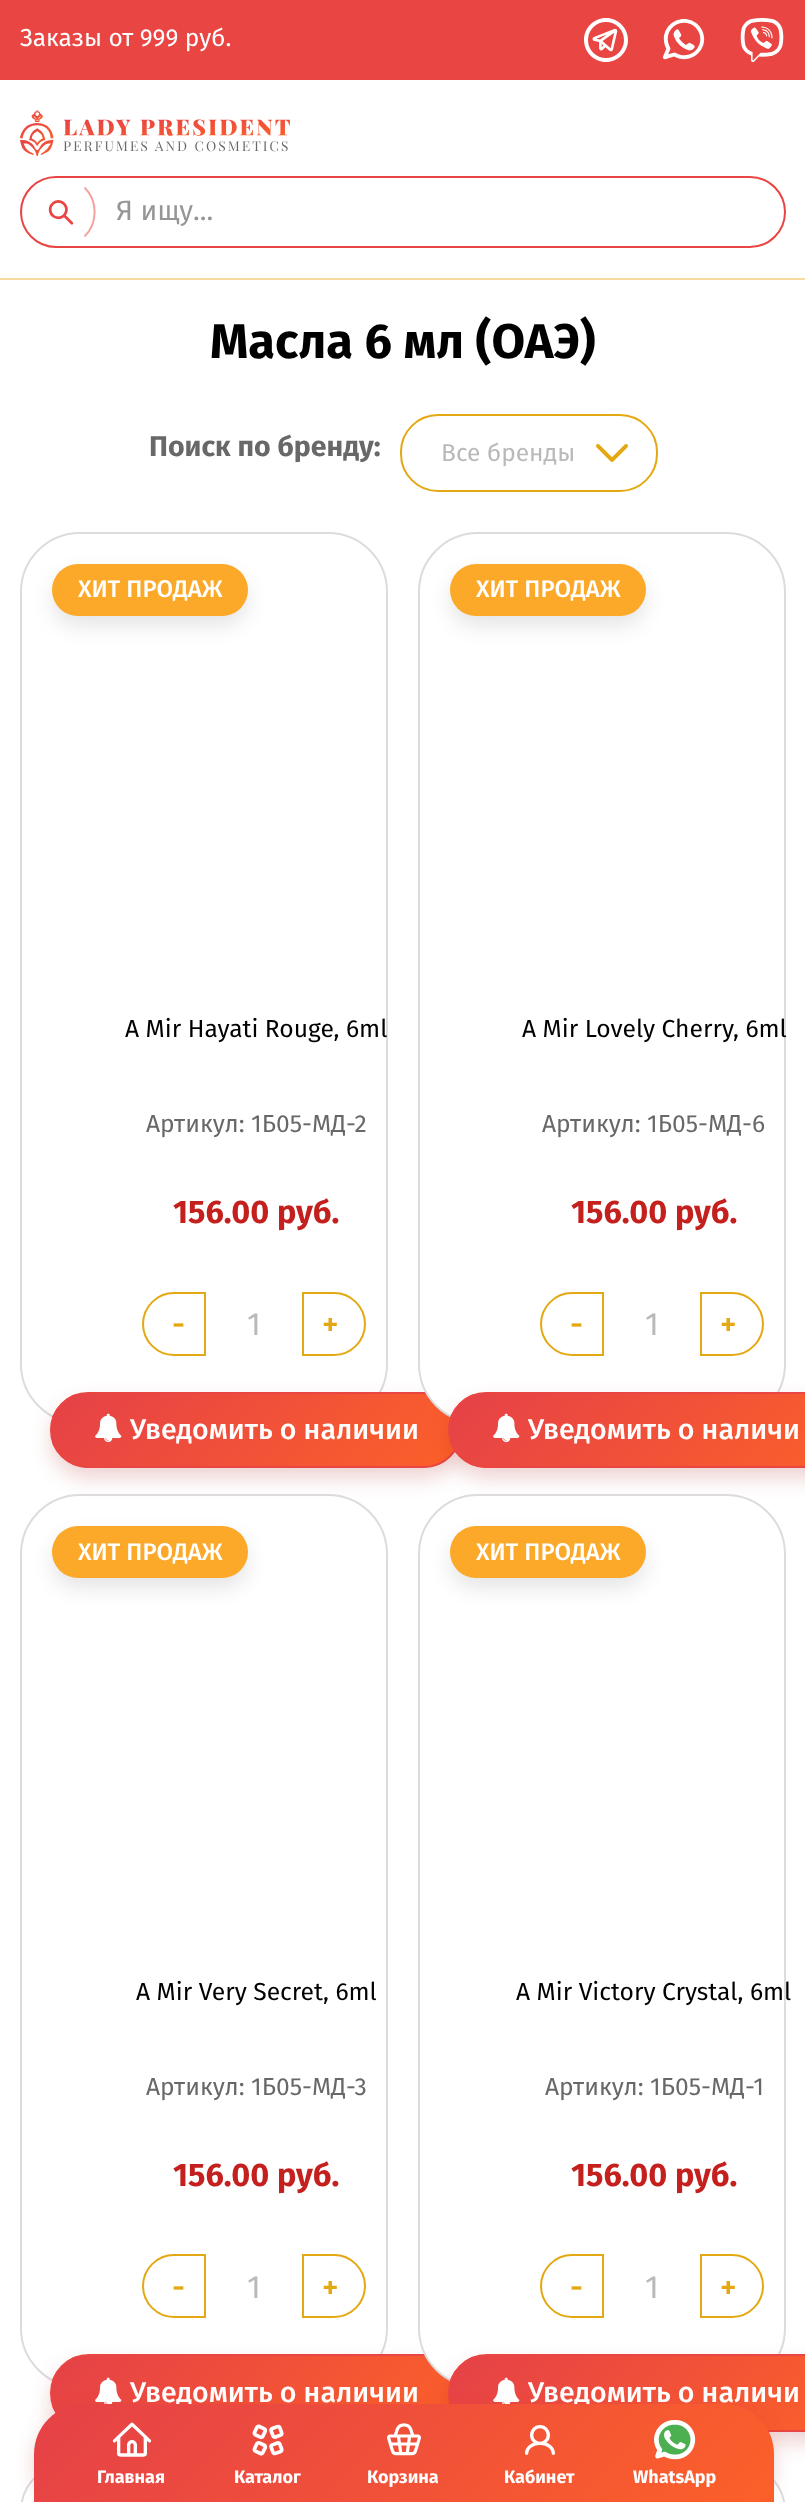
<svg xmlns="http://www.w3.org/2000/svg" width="805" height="2502">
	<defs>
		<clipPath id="clip1"><rect x="50" y="1392" width="412" height="76" rx="38" /></clipPath>
		<linearGradient id="g1" gradientUnits="userSpaceOnUse" x1="304" y1="1142" x2="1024" y2="1862"><stop offset="0" stop-color="#E54148" /><stop offset="0.33" stop-color="#FC6029" /><stop offset="0.66" stop-color="#FFFFFF" /><stop offset="1" stop-color="#FFFFFF" /></linearGradient>
		<clipPath id="clip2"><rect x="448" y="1392" width="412" height="76" rx="38" /></clipPath>
		<linearGradient id="g2" gradientUnits="userSpaceOnUse" x1="702" y1="1142" x2="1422" y2="1862"><stop offset="0" stop-color="#E54148" /><stop offset="0.33" stop-color="#FC6029" /><stop offset="0.66" stop-color="#FFFFFF" /><stop offset="1" stop-color="#FFFFFF" /></linearGradient>
		<clipPath id="clip3"><rect x="50" y="2354" width="412" height="78" rx="39" /></clipPath>
		<linearGradient id="g3" gradientUnits="userSpaceOnUse" x1="302" y1="2106" x2="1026" y2="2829"><stop offset="0" stop-color="#E54148" /><stop offset="0.33" stop-color="#FC6029" /><stop offset="0.66" stop-color="#FFFFFF" /><stop offset="1" stop-color="#FFFFFF" /></linearGradient>
		<clipPath id="clip4"><rect x="448" y="2354" width="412" height="78" rx="39" /></clipPath>
		<linearGradient id="g4" gradientUnits="userSpaceOnUse" x1="701" y1="2106" x2="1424" y2="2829"><stop offset="0" stop-color="#E54148" /><stop offset="0.33" stop-color="#FC6029" /><stop offset="0.66" stop-color="#FFFFFF" /><stop offset="1" stop-color="#FFFFFF" /></linearGradient>
		<linearGradient id="g5" gradientUnits="userSpaceOnUse" x1="194" y1="2244" x2="614" y2="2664"><stop offset="0" stop-color="#E54148" /><stop offset="1" stop-color="#FC6029" /></linearGradient>
	</defs>
	<rect width="100%" height="100%" fill="#FFFFFF" />
	<rect x="0" y="278" width="805" height="2" fill="#F4DCA0" />
	<rect x="0" y="0" width="805" height="80" fill="#E84543" />
	<text x="20" y="46" font-family="Fira Sans" font-size="24.5" fill="#FFFFFF">Заказы от 999 руб.</text>
	<image x="584" y="18" width="44" height="44" href="assets/img1.png" />
	<image x="662" y="19" width="43" height="41" href="assets/img2.png" />
	<image x="740" y="18" width="44" height="44" href="assets/img3.png" />
	<image x="20" y="110" width="270" height="46" href="assets/img4.png" />
	<rect x="21" y="177" width="764" height="70" rx="35" fill="none" stroke="#E84543" stroke-width="2" />
	<image x="48" y="200" width="26" height="25" href="assets/img5.png" />
	<path d="M84.5 187.5C98 200.5 98 223.5 84.5 236.5" fill="none" stroke="#F4A2A1" stroke-width="2" />
	<text x="116" y="220" font-family="Fira Sans" font-size="28" fill="#969696">Я ищу...</text>
	<text x="210" y="358" font-family="Fira Sans" font-size="48.75" font-weight="700" fill="#000000">Масла 6 мл (ОАЭ)</text>
	<text x="149" y="456" font-family="Fira Sans" font-size="28.5" font-weight="700" fill="#686868">Поиск по бренду:</text>
	<image x="596" y="444" width="32" height="18" href="assets/img6.png" />
	<rect x="401" y="415" width="256" height="76" rx="37" fill="none" stroke="#E4A813" stroke-width="2" />
	<text x="441" y="461" font-family="Fira Sans" font-size="24.5" fill="#B9B9B9">Все бренды</text>
	<rect x="21" y="533" width="366" height="890" rx="59" fill="none" stroke="#DCDCDC" stroke-width="2" />
	<rect x="52" y="574" width="196" height="52" rx="26" fill="#000000" fill-opacity="0.1" filter="blur(10px)" />
	<rect x="52" y="564" width="196" height="52" rx="26" fill="#FCA829" />
	<text x="78" y="597" font-family="Fira Sans" font-size="24" font-weight="500" fill="#FFFFFF">ХИТ ПРОДАЖ</text>
	<text x="125" y="1037" font-family="Fira Sans" font-size="24.6" fill="#000000">A Mir Hayati Rouge, 6ml</text>
	<text x="146" y="1132" font-family="Fira Sans" font-size="24.6" fill="#686868">Артикул: 1Б05-МД-2</text>
	<text x="173" y="1223" font-family="Fira Sans" font-size="32.5" font-weight="700" fill="#C3201E">156.00 руб.</text>
	<path d="M174 1293H205V1355H174C157 1355 143 1341 143 1324C143 1307 157 1293 174 1293Z" fill="none" stroke="#E4A813" stroke-width="2" />
	<text x="172" y="1335" font-family="Fira Sans" font-size="32" font-weight="500" fill="#E4A813">-</text>
	<text x="247" y="1335" font-family="Fira Sans" font-size="32" fill="#B9B9B9">1</text>
	<path d="M303 1293H334C351 1293 365 1307 365 1324C365 1341 351 1355 334 1355H303Z" fill="none" stroke="#E4A813" stroke-width="2" />
	<text x="322" y="1335" font-family="Fira Sans" font-size="32" font-weight="500" fill="#E4A813">+</text>
	<rect x="50" y="1402" width="412" height="76" rx="38" fill="#AC1C1A" fill-opacity="0.2" filter="blur(10px)" />
	<g clip-path="url(#clip1)">
		<path d="M52 1394H462V1430C462 1451 445 1468 424 1468H52Z" fill="url(#g1)" />
	</g>
	<rect x="51" y="1393" width="410" height="74" rx="37" fill="none" stroke="#E84543" stroke-width="2" />
	<image x="95" y="1413" width="27" height="30" href="assets/img7.png" />
	<text x="130" y="1439" font-family="Fira Sans" font-size="28.5" font-weight="500" fill="#FFFFFF">Уведомить о наличии</text>
	<rect x="419" y="533" width="366" height="890" rx="59" fill="#FFFFFF" stroke="#DCDCDC" stroke-width="2" />
	<rect x="450" y="574" width="196" height="52" rx="26" fill="#000000" fill-opacity="0.1" filter="blur(10px)" />
	<rect x="450" y="564" width="196" height="52" rx="26" fill="#FCA829" />
	<text x="476" y="597" font-family="Fira Sans" font-size="24" font-weight="500" fill="#FFFFFF">ХИТ ПРОДАЖ</text>
	<text x="522" y="1037" font-family="Fira Sans" font-size="24.6" fill="#000000">A Mir Lovely Cherry, 6ml</text>
	<text x="542" y="1132" font-family="Fira Sans" font-size="24.6" fill="#686868">Артикул: 1Б05-МД-6</text>
	<text x="571" y="1223" font-family="Fira Sans" font-size="32.5" font-weight="700" fill="#C3201E">156.00 руб.</text>
	<path d="M572 1293H603V1355H572C555 1355 541 1341 541 1324C541 1307 555 1293 572 1293Z" fill="none" stroke="#E4A813" stroke-width="2" />
	<text x="570" y="1335" font-family="Fira Sans" font-size="32" font-weight="500" fill="#E4A813">-</text>
	<text x="645" y="1335" font-family="Fira Sans" font-size="32" fill="#B9B9B9">1</text>
	<path d="M701 1293H732C749 1293 763 1307 763 1324C763 1341 749 1355 732 1355H701Z" fill="none" stroke="#E4A813" stroke-width="2" />
	<text x="720" y="1335" font-family="Fira Sans" font-size="32" font-weight="500" fill="#E4A813">+</text>
	<rect x="448" y="1402" width="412" height="76" rx="38" fill="#AC1C1A" fill-opacity="0.2" filter="blur(10px)" />
	<g clip-path="url(#clip2)">
		<rect x="450" y="1394" width="355" height="74" fill="url(#g2)" />
	</g>
	<rect x="449" y="1393" width="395" height="74" rx="37" fill="none" stroke="#E84543" stroke-width="2" />
	<image x="493" y="1413" width="27" height="30" href="assets/img8.png" />
	<text x="528" y="1439" font-family="Fira Sans" font-size="28.5" font-weight="500" fill="#FFFFFF">Уведомить о наличи</text>
	<rect x="21" y="1495" width="366" height="892" rx="59" fill="none" stroke="#DCDCDC" stroke-width="2" />
	<rect x="52" y="1536" width="196" height="52" rx="26" fill="#000000" fill-opacity="0.1" filter="blur(10px)" />
	<rect x="52" y="1526" width="196" height="52" rx="26" fill="#FCA829" />
	<text x="78" y="1560" font-family="Fira Sans" font-size="24" font-weight="500" fill="#FFFFFF">ХИТ ПРОДАЖ</text>
	<text x="136" y="2000" font-family="Fira Sans" font-size="24.6" fill="#000000">A Mir Very Secret, 6ml</text>
	<text x="146" y="2095" font-family="Fira Sans" font-size="24.6" fill="#686868">Артикул: 1Б05-МД-3</text>
	<text x="173" y="2186" font-family="Fira Sans" font-size="32.5" font-weight="700" fill="#C3201E">156.00 руб.</text>
	<path d="M174 2255H205V2317H174C157 2317 143 2303 143 2286C143 2269 157 2255 174 2255Z" fill="none" stroke="#E4A813" stroke-width="2" />
	<text x="172" y="2298" font-family="Fira Sans" font-size="32" font-weight="500" fill="#E4A813">-</text>
	<text x="247" y="2298" font-family="Fira Sans" font-size="32" fill="#B9B9B9">1</text>
	<path d="M303 2255H334C351 2255 365 2269 365 2286C365 2303 351 2317 334 2317H303Z" fill="none" stroke="#E4A813" stroke-width="2" />
	<text x="322" y="2298" font-family="Fira Sans" font-size="32" font-weight="500" fill="#E4A813">+</text>
	<rect x="50" y="2364" width="412" height="78" rx="39" fill="#AC1C1A" fill-opacity="0.2" filter="blur(10px)" />
	<g clip-path="url(#clip3)">
		<path d="M52 2356H462V2393C462 2414.5 444.5 2432 423 2432H52Z" fill="url(#g3)" />
	</g>
	<rect x="51" y="2355" width="410" height="76" rx="38" fill="none" stroke="#E84543" stroke-width="2" />
	<image x="95" y="2377" width="27" height="27" href="assets/img9.png" />
	<text x="130" y="2402" font-family="Fira Sans" font-size="28.5" font-weight="500" fill="#FFFFFF">Уведомить о наличии</text>
	<rect x="419" y="1495" width="366" height="892" rx="59" fill="#FFFFFF" stroke="#DCDCDC" stroke-width="2" />
	<rect x="450" y="1536" width="196" height="52" rx="26" fill="#000000" fill-opacity="0.1" filter="blur(10px)" />
	<rect x="450" y="1526" width="196" height="52" rx="26" fill="#FCA829" />
	<text x="476" y="1560" font-family="Fira Sans" font-size="24" font-weight="500" fill="#FFFFFF">ХИТ ПРОДАЖ</text>
	<text x="516" y="2000" font-family="Fira Sans" font-size="24.6" fill="#000000">A Mir Victory Crystal, 6ml</text>
	<text x="545" y="2095" font-family="Fira Sans" font-size="24.6" fill="#686868">Артикул: 1Б05-МД-1</text>
	<text x="571" y="2186" font-family="Fira Sans" font-size="32.5" font-weight="700" fill="#C3201E">156.00 руб.</text>
	<path d="M572 2255H603V2317H572C555 2317 541 2303 541 2286C541 2269 555 2255 572 2255Z" fill="none" stroke="#E4A813" stroke-width="2" />
	<text x="570" y="2298" font-family="Fira Sans" font-size="32" font-weight="500" fill="#E4A813">-</text>
	<text x="645" y="2298" font-family="Fira Sans" font-size="32" fill="#B9B9B9">1</text>
	<path d="M701 2255H732C749 2255 763 2269 763 2286C763 2303 749 2317 732 2317H701Z" fill="none" stroke="#E4A813" stroke-width="2" />
	<text x="720" y="2298" font-family="Fira Sans" font-size="32" font-weight="500" fill="#E4A813">+</text>
	<rect x="448" y="2364" width="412" height="78" rx="39" fill="#AC1C1A" fill-opacity="0.2" filter="blur(10px)" />
	<g clip-path="url(#clip4)">
		<rect x="450" y="2356" width="355" height="74" fill="url(#g4)" />
	</g>
	<rect x="449" y="2355" width="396" height="76" rx="38" fill="none" stroke="#E84543" stroke-width="2" />
	<image x="493" y="2377" width="27" height="27" href="assets/img10.png" />
	<text x="528" y="2402" font-family="Fira Sans" font-size="28.5" font-weight="500" fill="#FFFFFF">Уведомить о наличи</text>
	<rect x="21" y="2459" width="366" height="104" rx="59" fill="none" stroke="#DCDCDC" stroke-width="2" />
	<rect x="419" y="2459" width="366" height="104" rx="59" fill="none" stroke="#DCDCDC" stroke-width="2" />
	<rect x="34" y="2414" width="740" height="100" rx="50" fill="#AC1C1A" fill-opacity="0.2" filter="blur(10px)" />
	<path d="M84 2404H724C751.5 2404 774 2426.5 774 2454V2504H34V2454C34 2426.5 56.5 2404 84 2404Z" fill="url(#g5)" />
	<image x="112" y="2422" width="40" height="35" href="assets/img11.png" />
	<text x="97" y="2483" font-family="Fira Sans" font-size="18" font-weight="700" fill="#FFFFFF">Главная</text>
	<image x="252" y="2424" width="32" height="32" href="assets/img12.png" />
	<text x="234" y="2483" font-family="Fira Sans" font-size="18" font-weight="700" fill="#FFFFFF">Каталог</text>
	<image x="387" y="2423" width="34" height="33" href="assets/img13.png" />
	<text x="367" y="2483" font-family="Fira Sans" font-size="18" font-weight="700" fill="#FFFFFF">Корзина</text>
	<image x="525" y="2425" width="30" height="30" href="assets/img14.png" />
	<text x="504" y="2483" font-family="Fira Sans" font-size="18" font-weight="700" fill="#FFFFFF">Кабинет</text>
	<image x="654" y="2420" width="42" height="40" href="assets/img15.png" />
	<text x="633" y="2483" font-family="Fira Sans" font-size="18" font-weight="700" fill="#FFFFFF">WhatsApp</text>
</svg>
